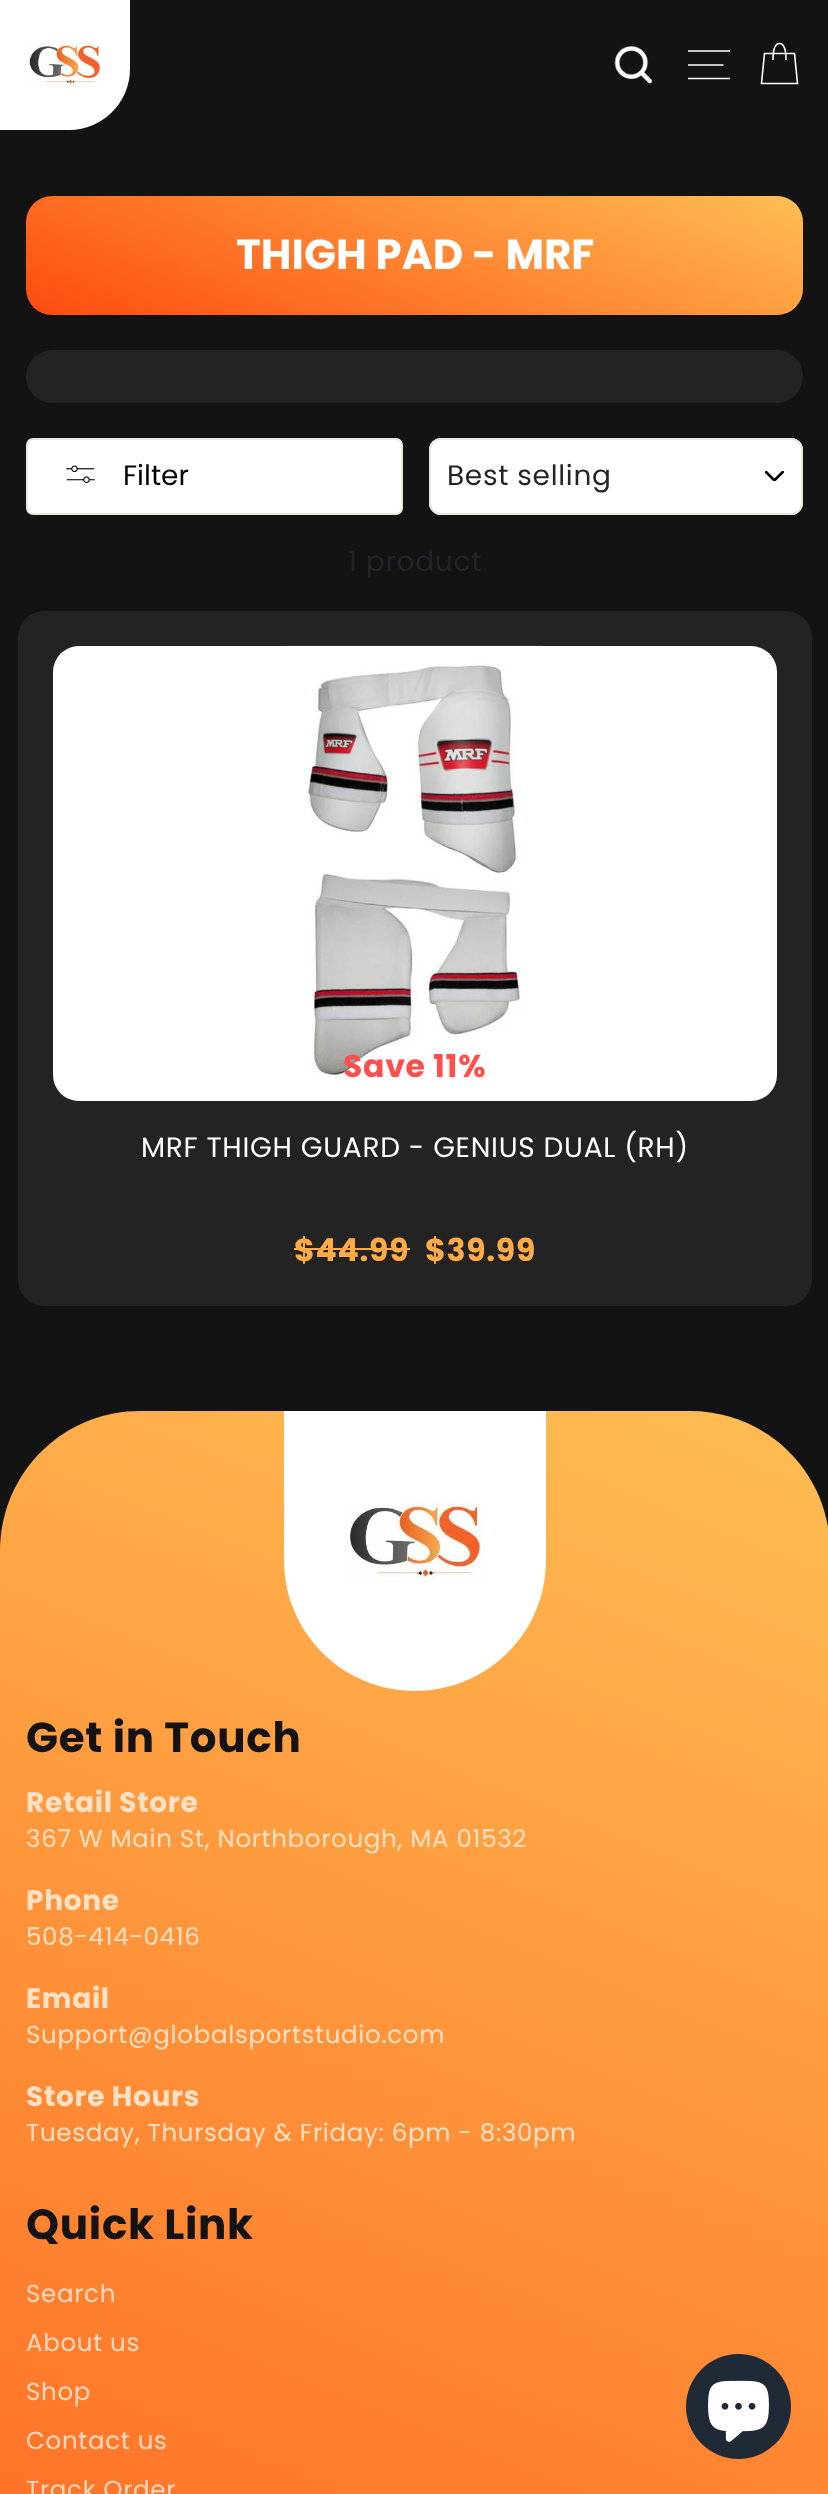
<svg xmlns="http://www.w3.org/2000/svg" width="828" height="2494">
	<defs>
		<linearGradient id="g1" gradientUnits="userSpaceOnUse" x1="340" y1="442" x2="490" y2="69"><stop offset="0" stop-color="#FD4B0F" /><stop offset="1" stop-color="#FFBE54" /></linearGradient>
		<linearGradient id="g2" gradientUnits="userSpaceOnUse" x1="31" y1="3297" x2="798" y2="1398"><stop offset="0" stop-color="#FD4B0F" /><stop offset="1" stop-color="#FFBE54" /></linearGradient>
	</defs>
	<rect width="100%" height="100%" fill="#131313" />
	<path d="M0 0H130V69C130 102.5 102.5 130 69 130H0Z" fill="#FFFFFF" />
	<image x="28" y="44" width="75" height="43" href="assets/img1.png" />
	<image x="614" y="46" width="39" height="38" href="assets/img2.png" />
	<path d="M688 51H730M688 65H723.5M688 78.5H730" fill="none" stroke="#FFFFFF" stroke-width="1.6" />
	<path d="M773 60C773 47 776 43.5 779.5 43.5C783 43.5 786 47 786 60M764.5 53.5H794.5L797.5 83.5H761.5Z" fill="none" stroke="#FFFFFF" stroke-width="1.6" />
	<rect x="26" y="196" width="777" height="119" rx="26" fill="url(#g1)" />
	<text x="236" y="269" font-family="Poppins" font-size="42" font-weight="700" fill="#FFFFFF">THIGH PAD - MRF</text>
	<rect x="26" y="350" width="777" height="53" rx="26.5" fill="#232323" />
	<rect x="27" y="439" width="375" height="75" rx="6" fill="#FFFFFF" stroke="#E8E8E1" stroke-width="2" />
	<image x="66" y="465" width="29" height="18" href="assets/img3.png" />
	<text x="123" y="485" font-family="Poppins" font-size="28" fill="#000000">Filter</text>
	<rect x="429" y="438" width="374" height="77" rx="12" fill="#FFFFFF" />
	<image x="765" y="471" width="19" height="10" href="assets/img4.png" />
	<rect x="430" y="439" width="372" height="75" rx="11" fill="none" stroke="#E8E8E1" stroke-width="2" />
	<g font-family="Poppins" font-size="28" letter-spacing="0.7" fill="#212529">
		<text x="447" y="485">Best selling</text>
		<text x="348" y="571">1 product</text>
	</g>
	<rect x="18" y="611" width="794" height="695" rx="26" fill="#232323" />
	<rect x="53" y="646" width="724" height="455" rx="26" fill="#FFFFFF" />
	<image x="287" y="645" width="256" height="433" href="assets/img5.png" />
	<text x="343" y="1077" font-family="Poppins" font-size="31.5" font-weight="700" letter-spacing="0.7" fill="#FF4E4E">Save 11%</text>
	<text x="294" y="1261" font-family="Poppins" font-size="31.5" font-weight="700" letter-spacing="0.7" fill="#FFAB48">$44.99</text>
	<rect x="294" y="1248" width="116" height="2" fill="#FFAB48" />
	<text x="425" y="1261" font-family="Poppins" font-size="31.5" font-weight="700" letter-spacing="0.7" fill="#FFAB48">$39.99</text>
	<text x="141" y="1157" font-family="Poppins" font-size="28" letter-spacing="0.7" fill="#FFFFFF">MRF THIGH GUARD - GENIUS DUAL (RH)</text>
	<path d="M140 1411H690C767.5 1411 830 1473.5 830 1551V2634H0V1551C0 1473.5 62.5 1411 140 1411Z" fill="url(#g2)" />
	<path d="M284 1411H546V1560C546 1632.5 487.5 1691 415 1691C342.5 1691 284 1632.5 284 1560Z" fill="#FFFFFF" />
	<image x="347" y="1503" width="138" height="80" href="assets/img6.png" />
	<text x="26" y="1752" font-family="Poppins" font-size="42" font-weight="700" letter-spacing="0.7" fill="#131313">Get in Touch</text>
	<text x="26" y="1812" font-family="Poppins" font-size="28" font-weight="700" letter-spacing="0.7" fill="#FFE1C5">Retail Store</text>
	<text x="26" y="1847" font-family="Poppins" font-size="24.5" letter-spacing="0.7" fill="#FFE1C5">367 W Main St, Northborough, MA 01532</text>
	<text x="26" y="1910" font-family="Poppins" font-size="28" font-weight="700" letter-spacing="0.7" fill="#FFE1C5">Phone</text>
	<text x="26" y="1945" font-family="Poppins" font-size="24.5" letter-spacing="0.7" fill="#FFE1C5">508-414-0416</text>
	<text x="26" y="2008" font-family="Poppins" font-size="28" font-weight="700" letter-spacing="0.7" fill="#FFE1C5">Email</text>
	<text x="26" y="2043" font-family="Poppins" font-size="24.5" letter-spacing="0.7" fill="#FFE1C5">Support@globalsportstudio.com</text>
	<text x="26" y="2106" font-family="Poppins" font-size="28" font-weight="700" letter-spacing="0.7" fill="#FFE1C5">Store Hours</text>
	<text x="26" y="2141" font-family="Poppins" font-size="24.5" letter-spacing="0.7" fill="#FFE1C5">Tuesday, Thursday &amp; Friday: 6pm - 8:30pm</text>
	<text x="26" y="2239" font-family="Poppins" font-size="42" font-weight="700" letter-spacing="0.7" fill="#131313">Quick Link</text>
	<g font-family="Poppins" font-size="24.5" letter-spacing="0.7" fill="#FFD9C1">
		<text x="26" y="2302">Search</text>
		<text x="26" y="2351">About us</text>
		<text x="26" y="2400">Shop</text>
		<text x="26" y="2449">Contact us</text>
		<text x="26" y="2498">Track Order</text>
	</g>
	<circle cx="738.5" cy="2406.5" r="52.5" fill="#202A36" />
	<image x="708" y="2380" width="61" height="62" href="assets/img7.png" />
</svg>
